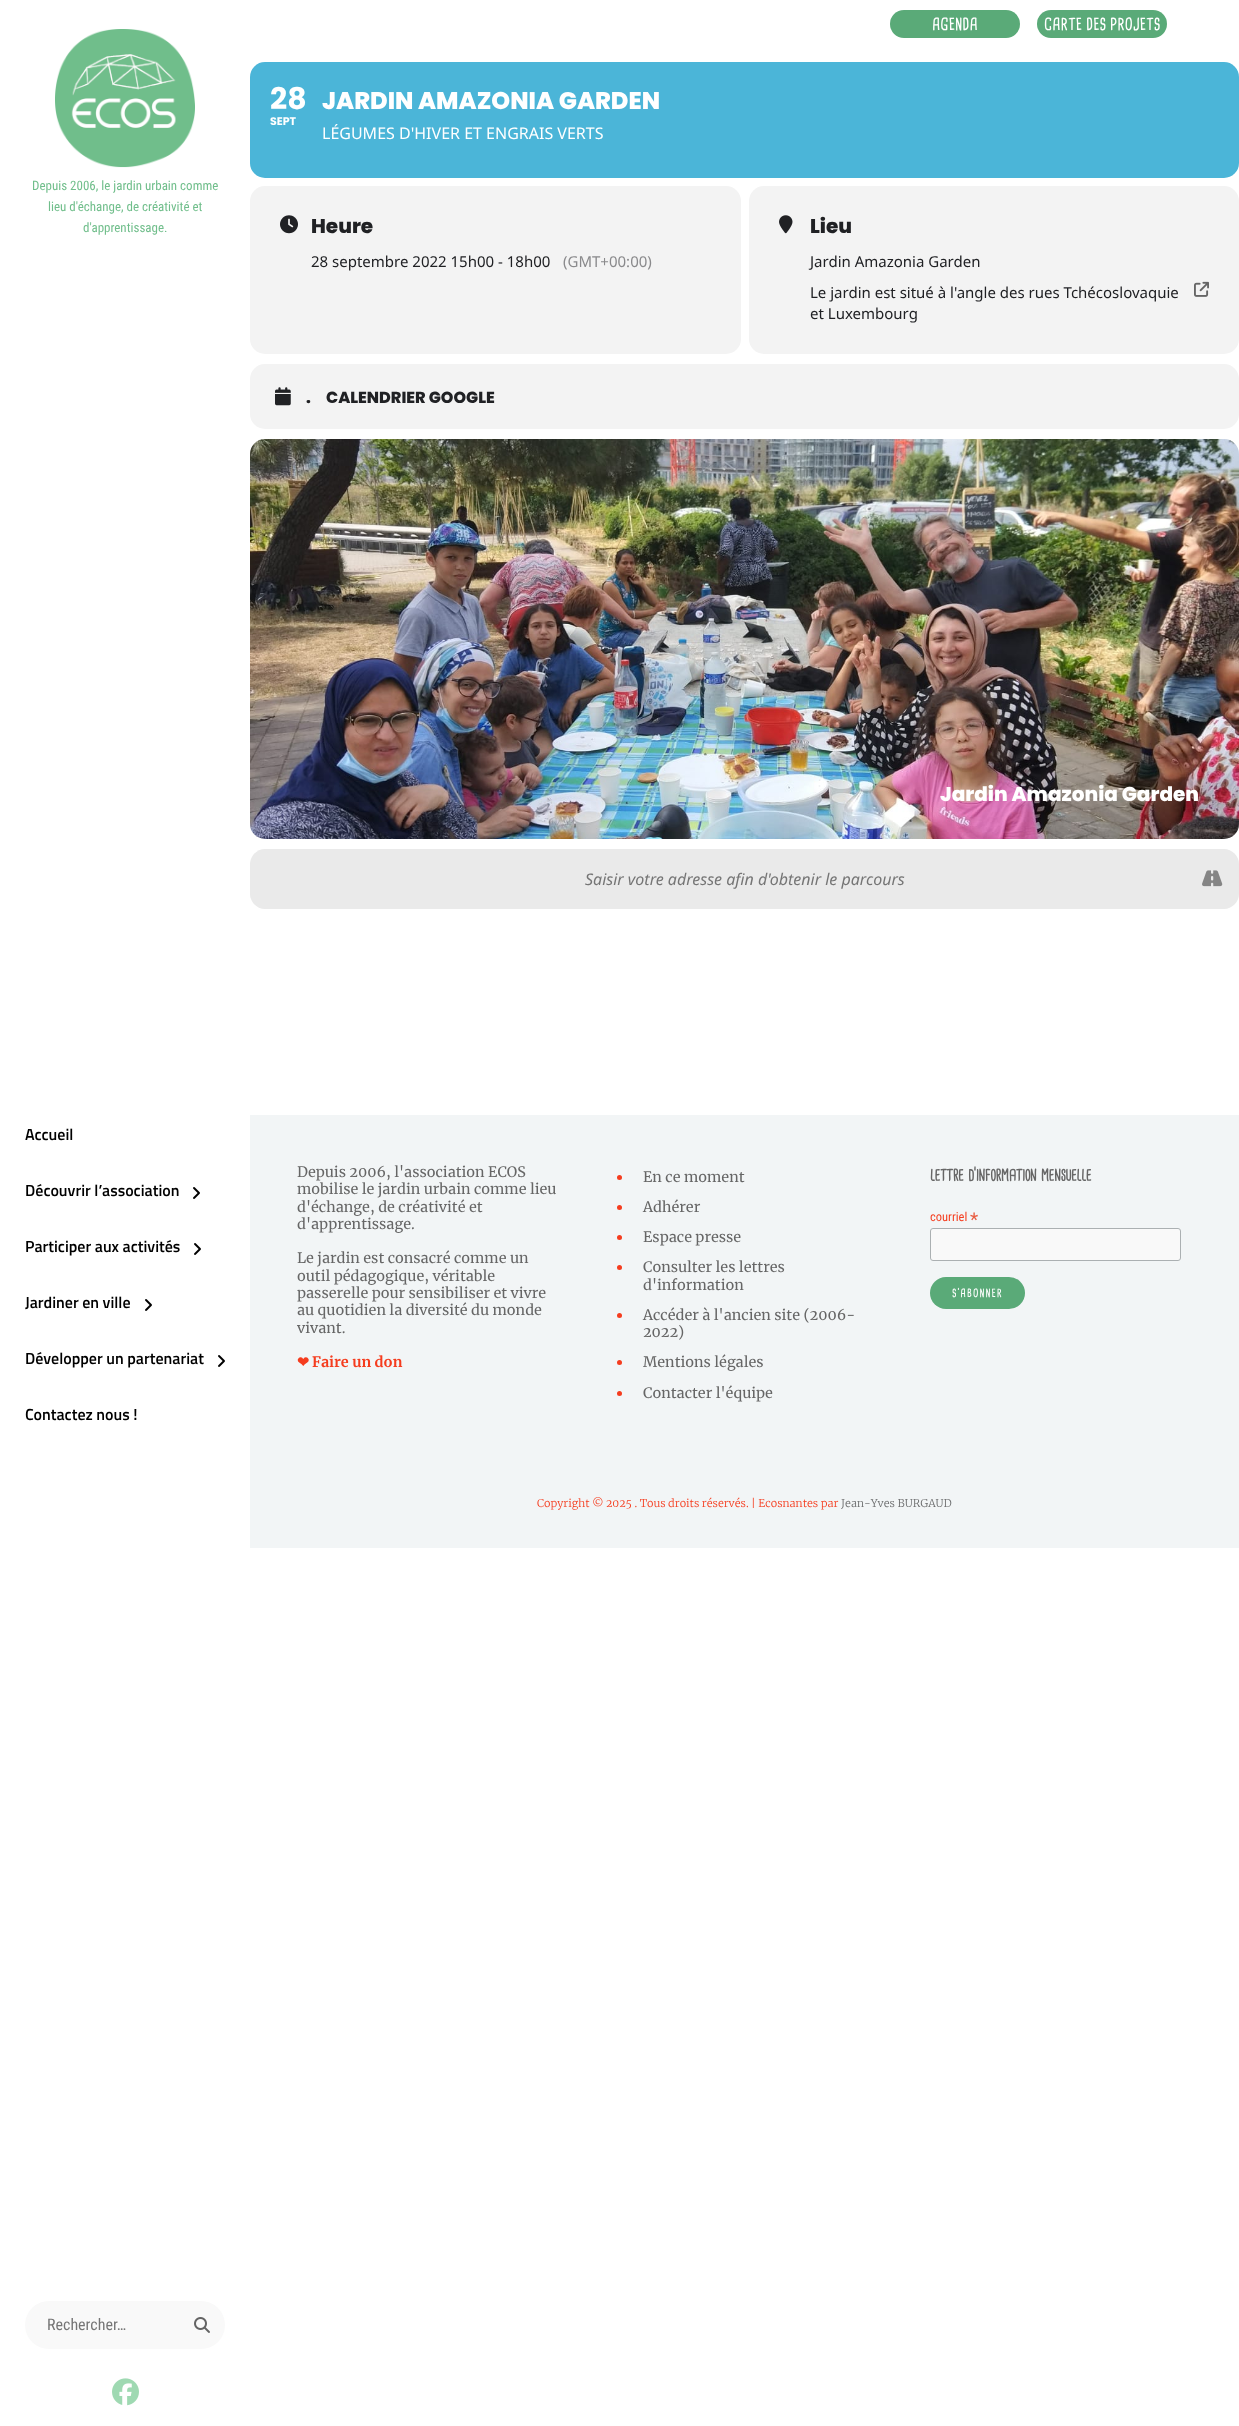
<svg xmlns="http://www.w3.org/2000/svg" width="1239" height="2426">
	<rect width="100%" height="100%" fill="#FFFFFF" />
	<image x="55" y="29" width="140" height="139" href="assets/img1.png" />
	<g font-family="Roboto Condensed" font-size="13" fill="#70BE8B">
		<text x="32" y="190">Depuis 2006, le jardin urbain comme</text>
		<text x="48" y="211">lieu d'échange, de créativité et</text>
		<text x="83" y="232">d'apprentissage.</text>
	</g>
	<g font-family="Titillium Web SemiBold" font-size="16" font-weight="600" fill="#000000">
		<text x="25" y="1140">Accueil</text>
		<text x="25" y="1196">Découvrir l’association</text>
	</g>
	<image x="193" y="1187" width="7" height="12" href="assets/img2.png" />
	<text x="25" y="1252" font-family="Titillium Web SemiBold" font-size="16" font-weight="600" fill="#000000">Participer aux activités</text>
	<image x="194" y="1243" width="7" height="12" href="assets/img2.png" />
	<text x="25" y="1308" font-family="Titillium Web SemiBold" font-size="16" font-weight="600" fill="#000000">Jardiner en ville</text>
	<image x="145" y="1299" width="7" height="12" href="assets/img2.png" />
	<text x="25" y="1364" font-family="Titillium Web SemiBold" font-size="16" font-weight="600" fill="#000000">Développer un partenariat</text>
	<image x="218" y="1355" width="7" height="12" href="assets/img2.png" />
	<text x="25" y="1420" font-family="Titillium Web SemiBold" font-size="16" font-weight="600" fill="#000000">Contactez nous !</text>
	<rect x="25" y="2301" width="200" height="48" rx="24" fill="#F9F9F9" />
	<text x="47" y="2330" font-family="Roboto Condensed" font-size="16" fill="#757575">Rechercher…</text>
	<image x="194" y="2317" width="16" height="16" href="assets/img3.png" />
	<image x="112" y="2378" width="27" height="28" href="assets/img4.png" />
	<rect x="890" y="10" width="130" height="28" rx="14" fill="#5AAA78" />
	<text x="932" y="30" font-family="'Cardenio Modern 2'" font-size="16.25" font-weight="700" fill="#FFFFFF">AGENDA</text>
	<rect x="1037" y="10" width="130" height="28" rx="14" fill="#5AAA78" />
	<text x="1044" y="30" font-family="'Cardenio Modern 2'" font-size="16.25" font-weight="700" fill="#FFFFFF">CARTE DES PROJETS</text>
	<rect x="250" y="62" width="989" height="116" rx="15" fill="#4BB5D8" />
	<text x="270" y="109" font-family="Poppins" font-size="30" font-weight="700" fill="#FFFFFF">28</text>
	<text x="270" y="125" font-family="Poppins" font-size="11" font-weight="700" fill="#FFFFFF">SEPT</text>
	<text x="322" y="109" font-family="Poppins" font-size="24" font-weight="800" fill="#FFFFFF">JARDIN AMAZONIA GARDEN</text>
	<text x="322" y="139" font-family="Noto Sans" font-size="16" fill="#FFFFFF">LÉGUMES D'HIVER ET ENGRAIS VERTS</text>
	<rect x="250" y="186" width="491" height="168" rx="15" fill="#F3F3F3" />
	<image x="280" y="215" width="18" height="19" href="assets/img5.png" />
	<text x="311" y="233" font-family="Poppins" font-size="20" font-weight="800" fill="#202124">Heure</text>
	<text x="311" y="267" font-family="Noto Sans" font-size="15" fill="#202124">28 septembre 2022 15h00 - 18h00</text>
	<text x="563" y="267" font-family="Noto Sans" font-size="15" fill="#8A8A8C">(GMT+00:00)</text>
	<rect x="749" y="186" width="490" height="168" rx="15" fill="#F3F3F3" />
	<image x="779" y="215" width="14" height="19" href="assets/img6.png" />
	<text x="810" y="233" font-family="Poppins" font-size="20" font-weight="800" fill="#202124">Lieu</text>
	<g font-family="Noto Sans" font-size="15" fill="#202124">
		<text x="810" y="267">Jardin Amazonia Garden</text>
		<text x="810" y="298">Le jardin est situé à l'angle des rues Tchécoslovaquie</text>
	</g>
	<image x="1194" y="281" width="15" height="16" href="assets/img7.png" />
	<text x="810" y="319" font-family="Noto Sans" font-size="15" fill="#202124">et Luxembourg</text>
	<rect x="250" y="364" width="989" height="65" rx="15" fill="#F3F3F3" />
	<image x="275" y="387" width="16" height="19" href="assets/img8.png" />
	<g font-family="Poppins" font-size="16" font-weight="800" fill="#202124">
		<text x="306" y="403">.</text>
		<text x="326" y="403">CALENDRIER GOOGLE</text>
	</g>
	<rect x="250" y="439" width="989" height="400" rx="15" fill="#F3F3F3" />
	<image x="250" y="439" width="989" height="400" href="assets/img9.png" />
	<text x="940" y="801" font-family="Poppins" font-size="20" font-weight="800" fill="#FFFFFF">Jardin Amazonia Garden</text>
	<path d="M265 849H1224C1232 849 1239 856 1239 864V894C1239 902 1232 909 1224 909H265C257 909 250 902 250 894V864C250 856 257 849 265 849Z" fill="#EAEAEA" />
	<text x="585" y="885" font-family="Noto Sans" font-size="16" font-style="italic" fill="#757575">Saisir votre adresse afin d'obtenir le parcours</text>
	<image x="1202" y="870" width="21" height="17" href="assets/img10.png" />
	<rect x="250" y="1115" width="989" height="433" fill="#F2F5F6" />
	<g font-family="Merriweather" font-size="14.4" fill="#666666">
		<text x="297" y="1177">Depuis 2006, l'association ECOS</text>
		<text x="297" y="1194">mobilise le jardin urbain comme lieu</text>
		<text x="297" y="1212">d'échange, de créativité et</text>
		<text x="297" y="1229">d'apprentissage.</text>
		<text x="297" y="1263">Le jardin est consacré comme un</text>
		<text x="297" y="1281">outil pédagogique, véritable</text>
		<text x="297" y="1298">passerelle pour sensibiliser et vivre</text>
		<text x="297" y="1315">au quotidien la diversité du monde</text>
		<text x="297" y="1333">vivant.</text>
	</g>
	<text x="297" y="1367" font-family="DejaVu Sans" font-size="14.4" font-weight="700" fill="#F53C1E">❤</text>
	<text x="312" y="1367" font-family="Merriweather" font-size="14.4" font-weight="700" fill="#F53C1E">Faire un don</text>
	<circle cx="619.5" cy="1177.5" r="2.5" fill="#F53C1E" />
	<text x="643" y="1182" font-family="Merriweather" font-size="14.4" fill="#666666">En ce moment</text>
	<circle cx="619.5" cy="1207.5" r="2.5" fill="#F53C1E" />
	<text x="643" y="1212" font-family="Merriweather" font-size="14.4" fill="#666666">Adhérer</text>
	<circle cx="619.5" cy="1237.5" r="2.5" fill="#F53C1E" />
	<text x="643" y="1242" font-family="Merriweather" font-size="14.4" fill="#666666">Espace presse</text>
	<circle cx="619.5" cy="1267.5" r="2.5" fill="#F53C1E" />
	<g font-family="Merriweather" font-size="14.4" fill="#666666">
		<text x="643" y="1272">Consulter les lettres</text>
		<text x="643" y="1290">d'information</text>
	</g>
	<circle cx="619.5" cy="1315.5" r="2.5" fill="#F53C1E" />
	<g font-family="Merriweather" font-size="14.4" fill="#666666">
		<text x="643" y="1320">Accéder à l'ancien site (2006-</text>
		<text x="643" y="1337">2022)</text>
	</g>
	<circle cx="619.5" cy="1362.5" r="2.5" fill="#F53C1E" />
	<text x="643" y="1367" font-family="Merriweather" font-size="14.4" fill="#666666">Mentions légales</text>
	<circle cx="619.5" cy="1393.5" r="2.5" fill="#F53C1E" />
	<text x="643" y="1398" font-family="Merriweather" font-size="14.4" fill="#666666">Contacter l'équipe</text>
	<text x="930" y="1181" font-family="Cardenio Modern" font-size="18.25" font-weight="700" fill="#666666">lettre d’information mensuelle</text>
	<text x="930" y="1221" font-family="Roboto Condensed" font-size="12.5" fill="#F53C1E">courriel</text>
	<text x="970" y="1226" font-family="Roboto Condensed" font-size="19" fill="#E85C41">*</text>
	<rect x="930.5" y="1228.5" width="250" height="32" rx="2.5" fill="#F9F9F9" stroke="#ABB0B2" />
	<rect x="930" y="1277" width="95" height="32" rx="16" fill="#5AAA78" />
	<text x="952" y="1297" font-family="'Cardenio Modern 2'" font-size="11" font-weight="700" letter-spacing="1" fill="#FFFFFF">S'ABONNER</text>
	<text x="537" y="1507" font-family="Merriweather" font-size="10.8" font-weight="300" fill="#F53C1E">Copyright © 2025 . Tous droits réservés. | Ecosnantes par</text>
	<text x="841" y="1507" font-family="Merriweather" font-size="10.8" font-weight="300" fill="#6B6C6D">Jean-Yves BURGAUD</text>
</svg>
